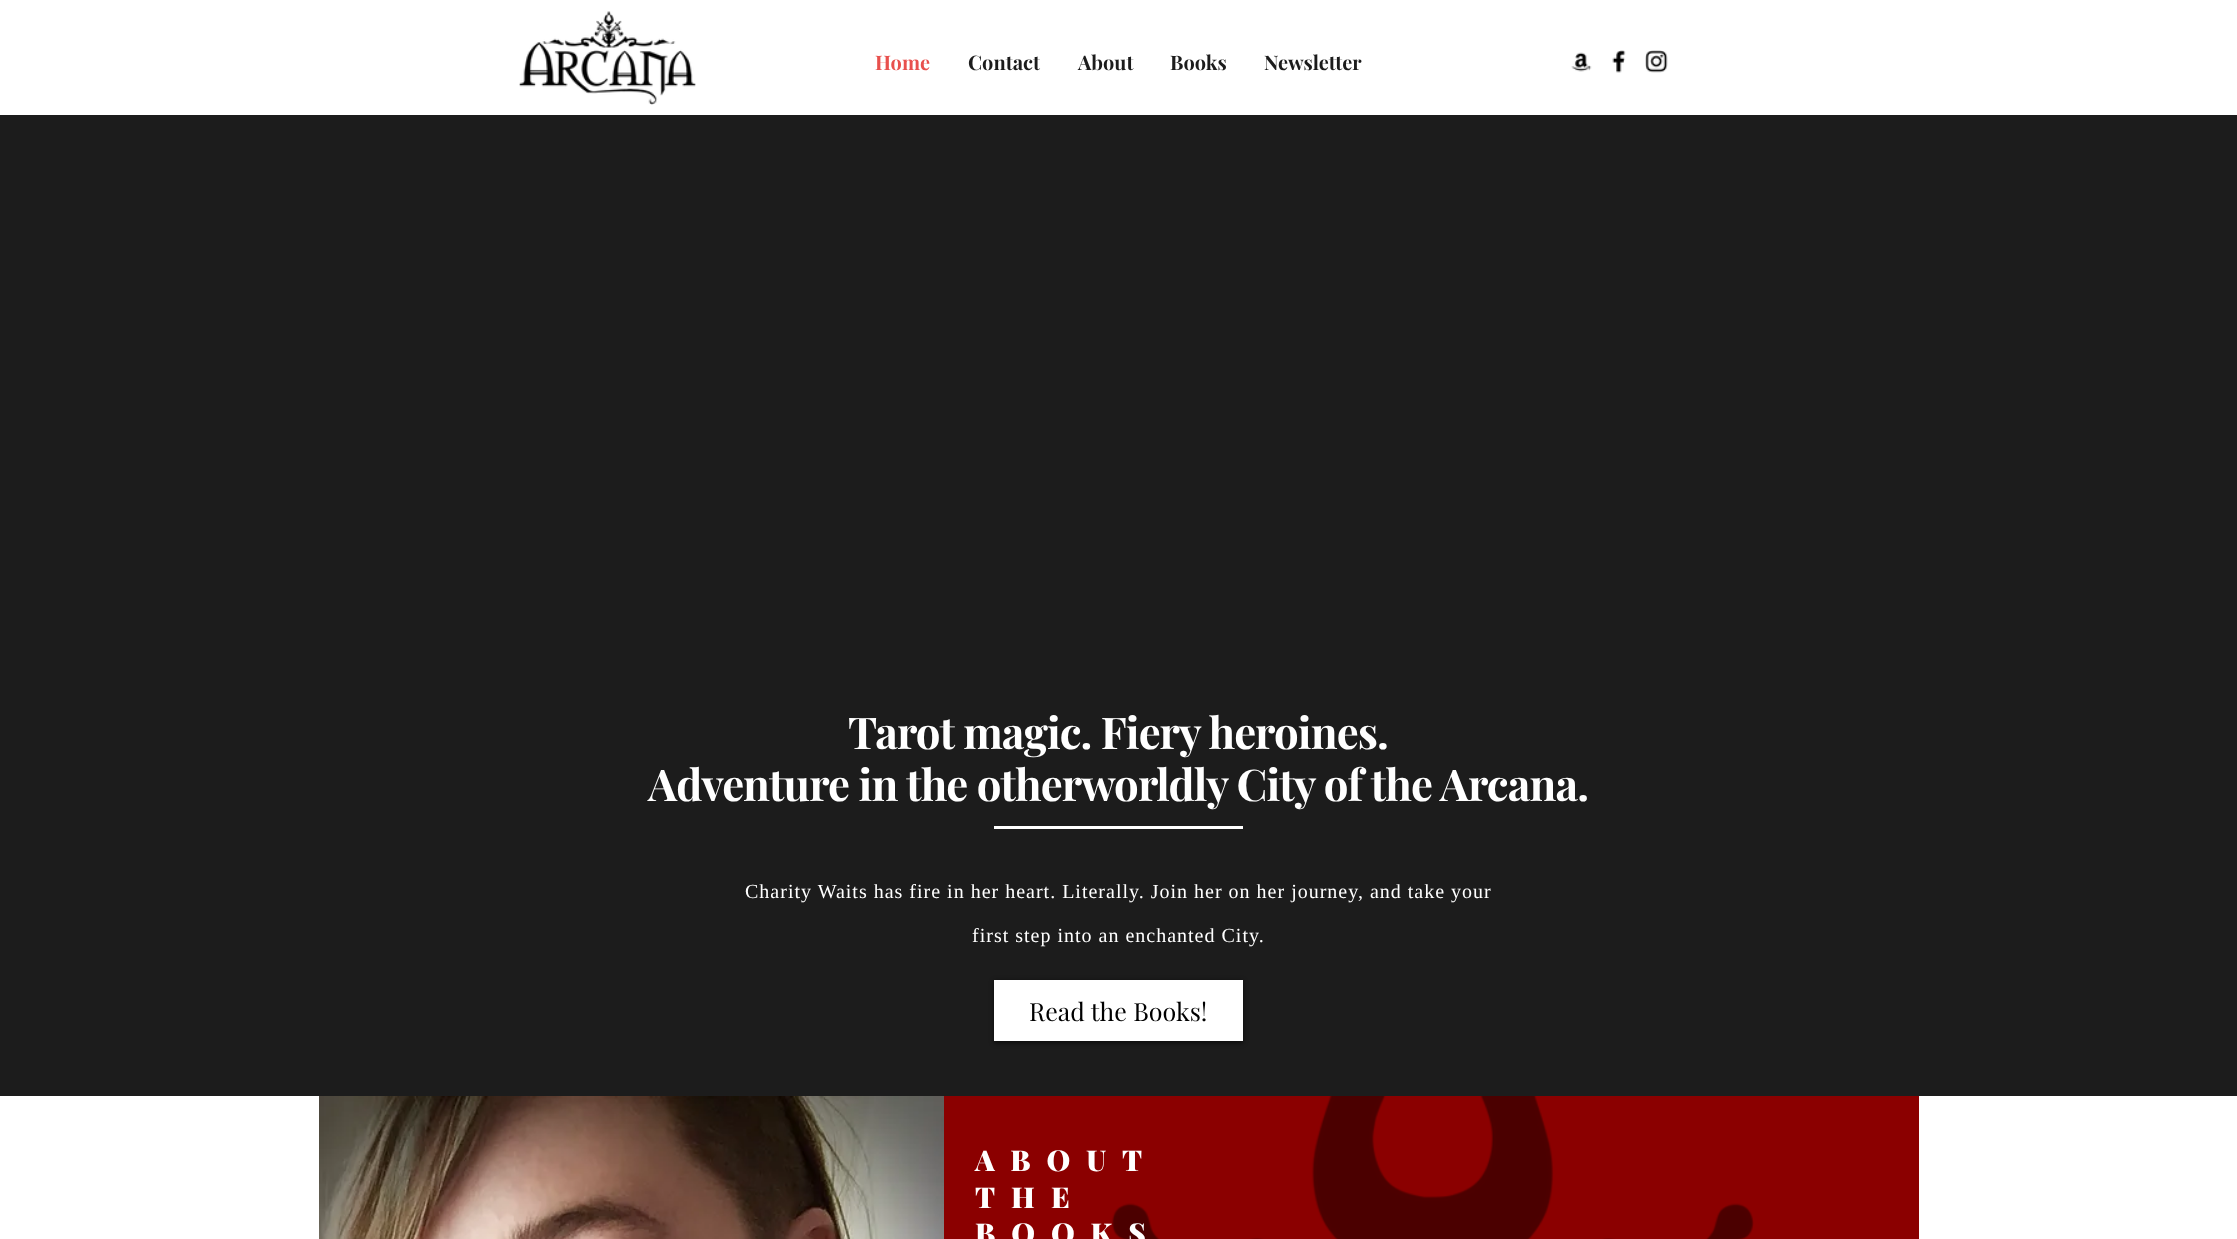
<svg xmlns="http://www.w3.org/2000/svg" width="2237" height="1239">
	<rect width="100%" height="100%" fill="#FFFFFF" />
	<image x="519" y="11" width="177" height="94" href="assets/img1.png" />
	<text x="875" y="70" font-family="Playfair Display" font-size="20" font-weight="700" fill="#E8504D">Home</text>
	<g font-family="Playfair Display" font-size="20" font-weight="700" fill="#1C1C1C">
		<text x="968" y="70">Contact</text>
		<text x="1078" y="70">About</text>
		<text x="1170" y="70">Books</text>
		<text x="1264" y="70">Newsletter</text>
	</g>
	<image x="1571" y="52" width="21" height="20" href="assets/img2.png" />
	<image x="1612" y="50" width="14" height="23" href="assets/img3.png" />
	<image x="1645" y="50" width="23" height="23" href="assets/img4.png" />
	<rect x="0" y="115" width="2237" height="981" fill="#1C1C1C" />
	<g font-family="Playfair Display" font-size="43.75" font-weight="700" letter-spacing="-0.9" fill="#FFFFFF">
		<text x="848" y="749">Tarot magic. Fiery heroines.</text>
		<text x="648" y="801">Adventure in the otherworldly City of the Arcana.</text>
	</g>
	<rect x="994" y="826" width="249" height="3" fill="#FFFFFF" />
	<g font-family="Liberation Serif" font-size="20" letter-spacing="1" fill="#FFFFFF">
		<text x="745" y="898">Charity Waits has fire in her heart. Literally. Join her on her journey, and take your</text>
		<text x="972" y="942">first step into an enchanted City.</text>
	</g>
	<rect x="994" y="981" width="249" height="62" fill="#000000" fill-opacity="0.6" filter="blur(2.5px)" />
	<rect x="994" y="980" width="249" height="61" fill="#FFFFFF" />
	<text x="1029" y="1021" font-family="Playfair Display" font-size="25" fill="#000000">Read the Books!</text>
	<image x="319" y="1096" width="625" height="143" href="assets/img5.png" />
	<rect x="944" y="1096" width="975" height="143" fill="#8B0000" />
	<image x="1111" y="1096" width="643" height="143" href="assets/img6.png" />
	<g font-family="Playfair Display" font-size="28.75" font-weight="900" letter-spacing="16" fill="#FFFFFF">
		<text x="975" y="1171">ABOUT</text>
		<text x="975" y="1208">THE</text>
		<text x="975" y="1244">BOOKS</text>
	</g>
</svg>
